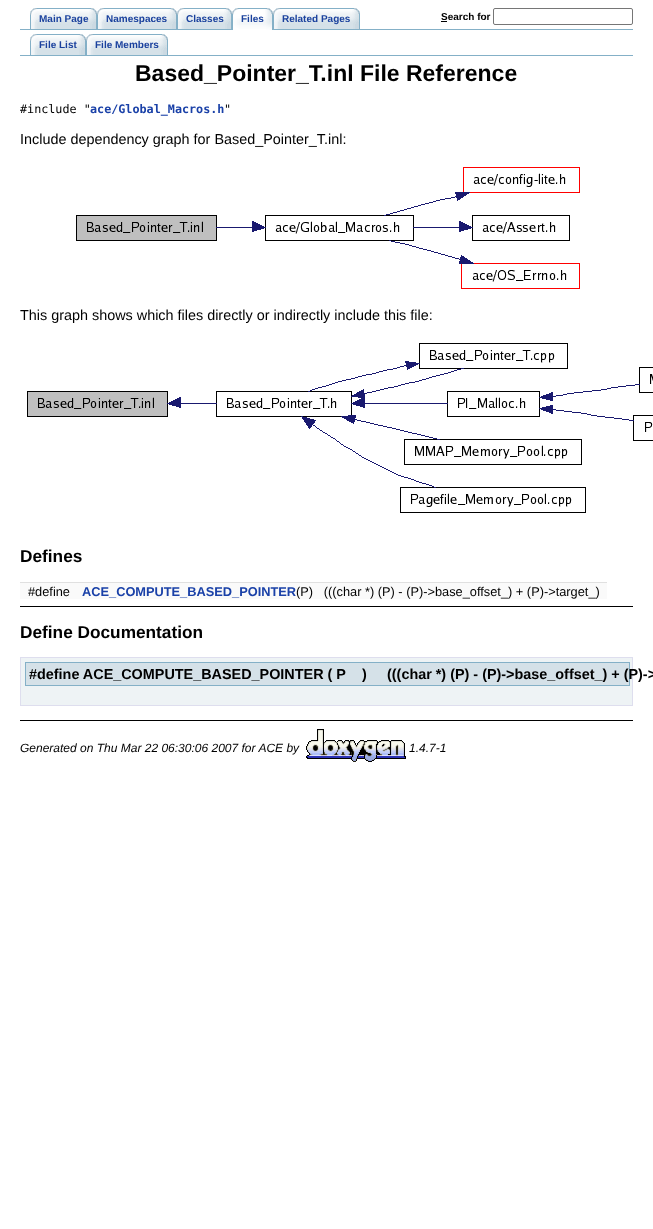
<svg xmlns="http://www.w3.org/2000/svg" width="653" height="1229">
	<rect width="100%" height="100%" fill="#FFFFFF" />
	<rect x="20" y="29" width="613" height="1" fill="#84B0C7" />
	<image x="39" y="8" width="58" height="21" href="assets/img1.png" />
	<image x="30" y="8" width="9" height="21" href="assets/img2.png" />
	<text x="39" y="22" font-family="Liberation Sans" font-size="10" font-weight="700" fill="#1A419D">Main Page</text>
	<image x="106" y="8" width="71" height="21" href="assets/img3.png" />
	<image x="97" y="8" width="9" height="21" href="assets/img2.png" />
	<text x="106" y="22" font-family="Liberation Sans" font-size="10" font-weight="700" fill="#1A419D">Namespaces</text>
	<image x="186" y="8" width="46" height="21" href="assets/img4.png" />
	<image x="177" y="8" width="9" height="21" href="assets/img2.png" />
	<text x="186" y="22" font-family="Liberation Sans" font-size="10" font-weight="700" fill="#1A419D">Classes</text>
	<image x="239" y="8" width="34" height="22" href="assets/img5.png" />
	<image x="232" y="8" width="7" height="22" href="assets/img6.png" />
	<text x="241" y="22" font-family="Liberation Sans" font-size="10" font-weight="700" fill="#1A419D">Files</text>
	<image x="282" y="8" width="78" height="21" href="assets/img7.png" />
	<image x="273" y="8" width="9" height="21" href="assets/img2.png" />
	<text x="282" y="22" font-family="Liberation Sans" font-size="10" font-weight="700" fill="#1A419D">Related Pages</text>
	<text x="441" y="20" font-family="Liberation Sans" font-size="10" font-weight="700" fill="#000000">Search for</text>
	<rect x="441" y="21" width="6" height="1" fill="#000000" />
	<rect x="493.5" y="8.5" width="139" height="16" rx="1.5" fill="none" stroke="#767676" />
	<rect x="20" y="55" width="613" height="1" fill="#84B0C7" />
	<image x="39" y="34" width="47" height="21" href="assets/img8.png" />
	<image x="30" y="34" width="9" height="21" href="assets/img2.png" />
	<text x="39" y="48" font-family="Liberation Sans" font-size="10" font-weight="700" fill="#1A419D">File List</text>
	<image x="95" y="34" width="73" height="21" href="assets/img9.png" />
	<image x="86" y="34" width="9" height="21" href="assets/img2.png" />
	<text x="95" y="48" font-family="Liberation Sans" font-size="10" font-weight="700" fill="#1A419D">File Members</text>
	<text x="135" y="81" font-family="Liberation Sans" font-size="23" font-weight="700" fill="#000000">Based_Pointer_T.inl File Reference</text>
	<text x="20" y="113" font-family="DejaVu Sans Mono" font-size="11.75" fill="#000000">#include "</text>
	<text x="90" y="113" font-family="DejaVu Sans Mono" font-size="11.75" font-weight="700" fill="#1A41A8">ace/Global_Macros.h</text>
	<text x="224" y="113" font-family="DejaVu Sans Mono" font-size="11.75" fill="#000000">"</text>
	<text x="20" y="144" font-family="Liberation Sans" font-size="14.4" fill="#000000">Include dependency graph for Based_Pointer_T.inl:</text>
	<image x="76" y="167" width="504" height="122" href="assets/img10.png" />
	<text x="20" y="320" font-family="Liberation Sans" font-size="14.4" fill="#000000">This graph shows which files directly or indirectly include this file:</text>
	<image x="27" y="343" width="626" height="170" href="assets/img11.png" />
	<text x="20" y="562" font-family="Liberation Sans" font-size="17.25" font-weight="700" fill="#000000">Defines</text>
	<rect x="20" y="583" width="587" height="16" fill="#FAFAFA" />
	<rect x="20" y="582" width="587" height="1" fill="#E0E0E0" />
	<text x="28" y="596" font-family="Liberation Sans" font-size="12.8" fill="#000000">#define</text>
	<text x="82" y="596" font-family="Liberation Sans" font-size="12.8" font-weight="700" fill="#1A41A8">ACE_COMPUTE_BASED_POINTER</text>
	<text x="296" y="596" font-family="Liberation Sans" font-size="12.8" fill="#000000" xml:space="preserve">(P)   (((char *) (P) - (P)-&gt;base_offset_) + (P)-&gt;target_)</text>
	<rect x="20" y="606" width="613" height="1" fill="#000000" />
	<text x="20" y="638" font-family="Liberation Sans" font-size="17.25" font-weight="700" fill="#000000">Define Documentation</text>
	<rect x="20.5" y="657.5" width="612" height="48" fill="#EEF3F5" stroke="#DEDEEE" />
	<rect x="25.5" y="662.5" width="604" height="23" fill="#D5E1E8" stroke="#84B0C7" />
	<g font-family="Liberation Sans" font-size="14.4" font-weight="700" fill="#000000">
		<text x="29" y="679">#define ACE_COMPUTE_BASED_POINTER ( P</text>
		<text x="362" y="679">)</text>
		<text x="387" y="679">(((char *) (P) - (P)-&gt;base_offset_) + (P)-&gt;</text>
	</g>
	<rect x="20" y="720" width="613" height="1" fill="#000000" />
	<text x="20" y="752" font-family="Liberation Sans" font-size="12" font-style="italic" fill="#000000">Generated on Thu Mar 22 06:30:06 2007 for ACE by</text>
	<image x="306" y="729" width="100" height="33" href="assets/img12.png" />
	<text x="409" y="752" font-family="Liberation Sans" font-size="12" font-style="italic" fill="#000000">1.4.7-1</text>
</svg>
